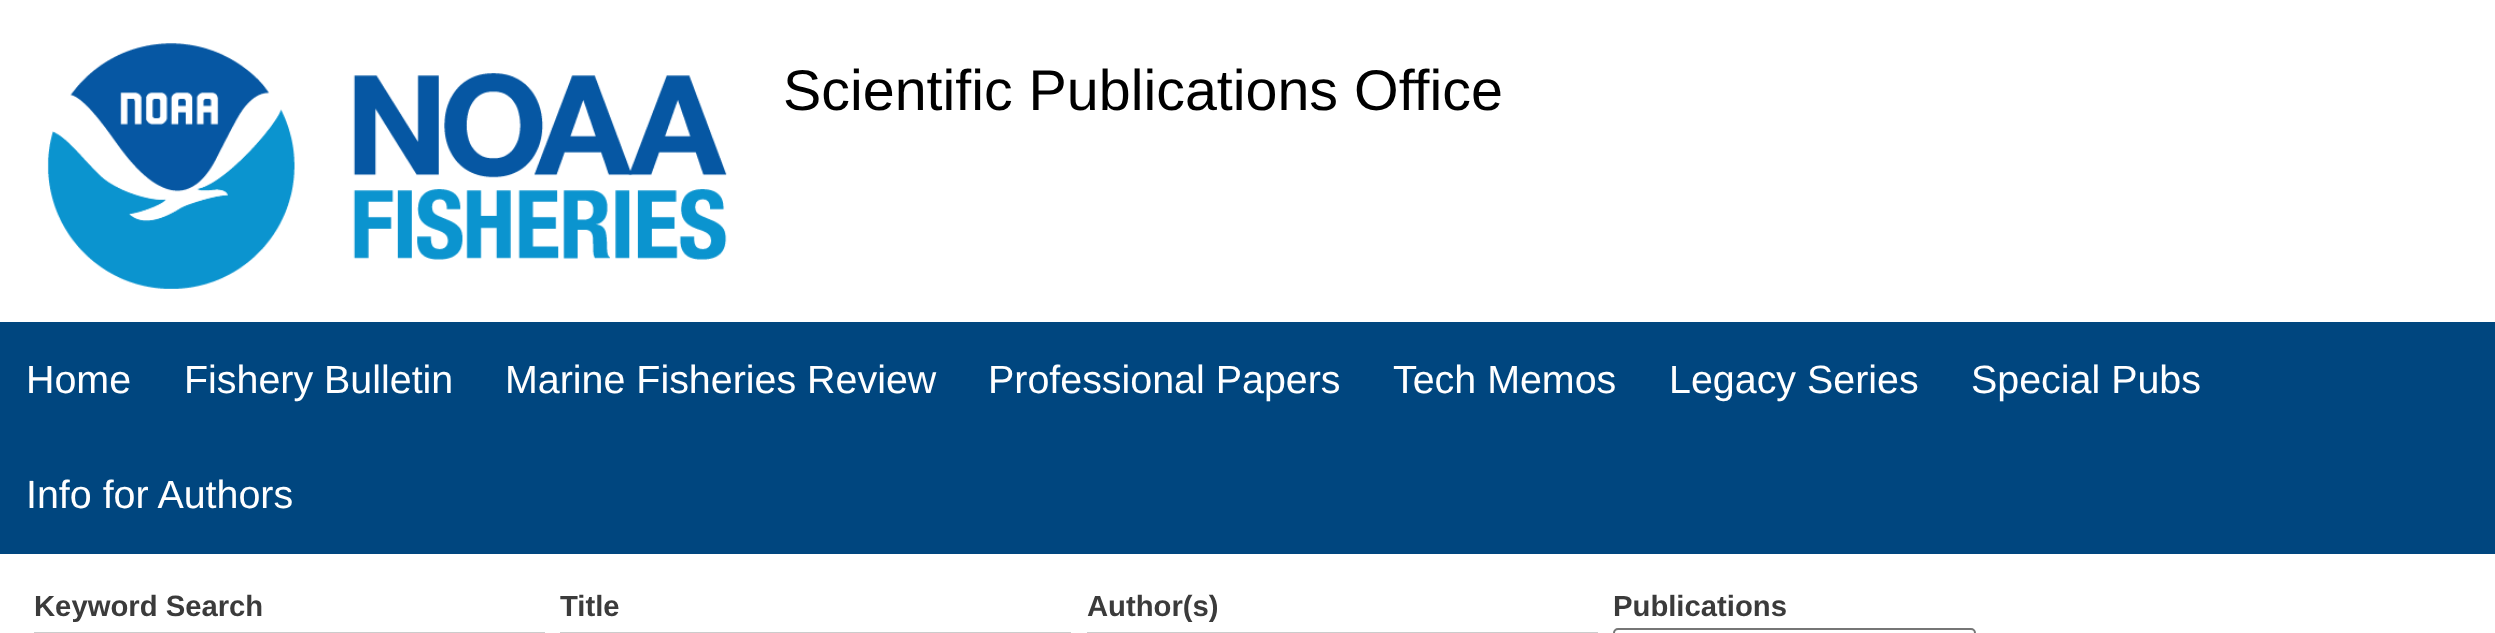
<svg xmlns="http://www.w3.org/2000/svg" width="2495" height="633">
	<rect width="100%" height="100%" fill="#FFFFFF" />
	<image x="47" y="43" width="680" height="246" href="assets/img1.png" />
	<text x="783" y="110" font-family="Liberation Sans" font-size="57.4" fill="#000000">Scientific Publications Office</text>
	<rect x="0" y="322" width="2495" height="232" fill="#00467F" />
	<g font-family="Liberation Sans" font-size="39.4" fill="#FFFFFF">
		<text x="26" y="393">Home</text>
		<text x="184" y="393">Fishery Bulletin</text>
		<text x="505" y="393">Marine Fisheries Review</text>
		<text x="988" y="393">Professional Papers</text>
		<text x="1393" y="393">Tech Memos</text>
		<text x="1669" y="393">Legacy Series</text>
		<text x="1971" y="393">Special Pubs</text>
		<text x="26" y="508">Info for Authors</text>
	</g>
	<text x="34" y="616" font-family="Liberation Sans" font-size="29.25" font-weight="700" fill="#3B3B3B">Keyword Search</text>
	<rect x="35" y="633" width="509" height="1" fill="none" stroke="#CCCCCC" stroke-width="2" />
	<text x="560" y="616" font-family="Liberation Sans" font-size="29.25" font-weight="700" fill="#3B3B3B">Title</text>
	<rect x="561" y="633" width="509" height="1" fill="none" stroke="#CCCCCC" stroke-width="2" />
	<text x="1087" y="616" font-family="Liberation Sans" font-size="29.25" font-weight="700" fill="#3B3B3B">Author(s)</text>
	<rect x="1088" y="633" width="509" height="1" fill="none" stroke="#CCCCCC" stroke-width="2" />
	<text x="1613" y="616" font-family="Liberation Sans" font-size="29.25" font-weight="700" fill="#3B3B3B">Publications</text>
	<rect x="1614" y="629" width="361" height="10" rx="4" fill="none" stroke="#767676" stroke-width="2" />
</svg>
